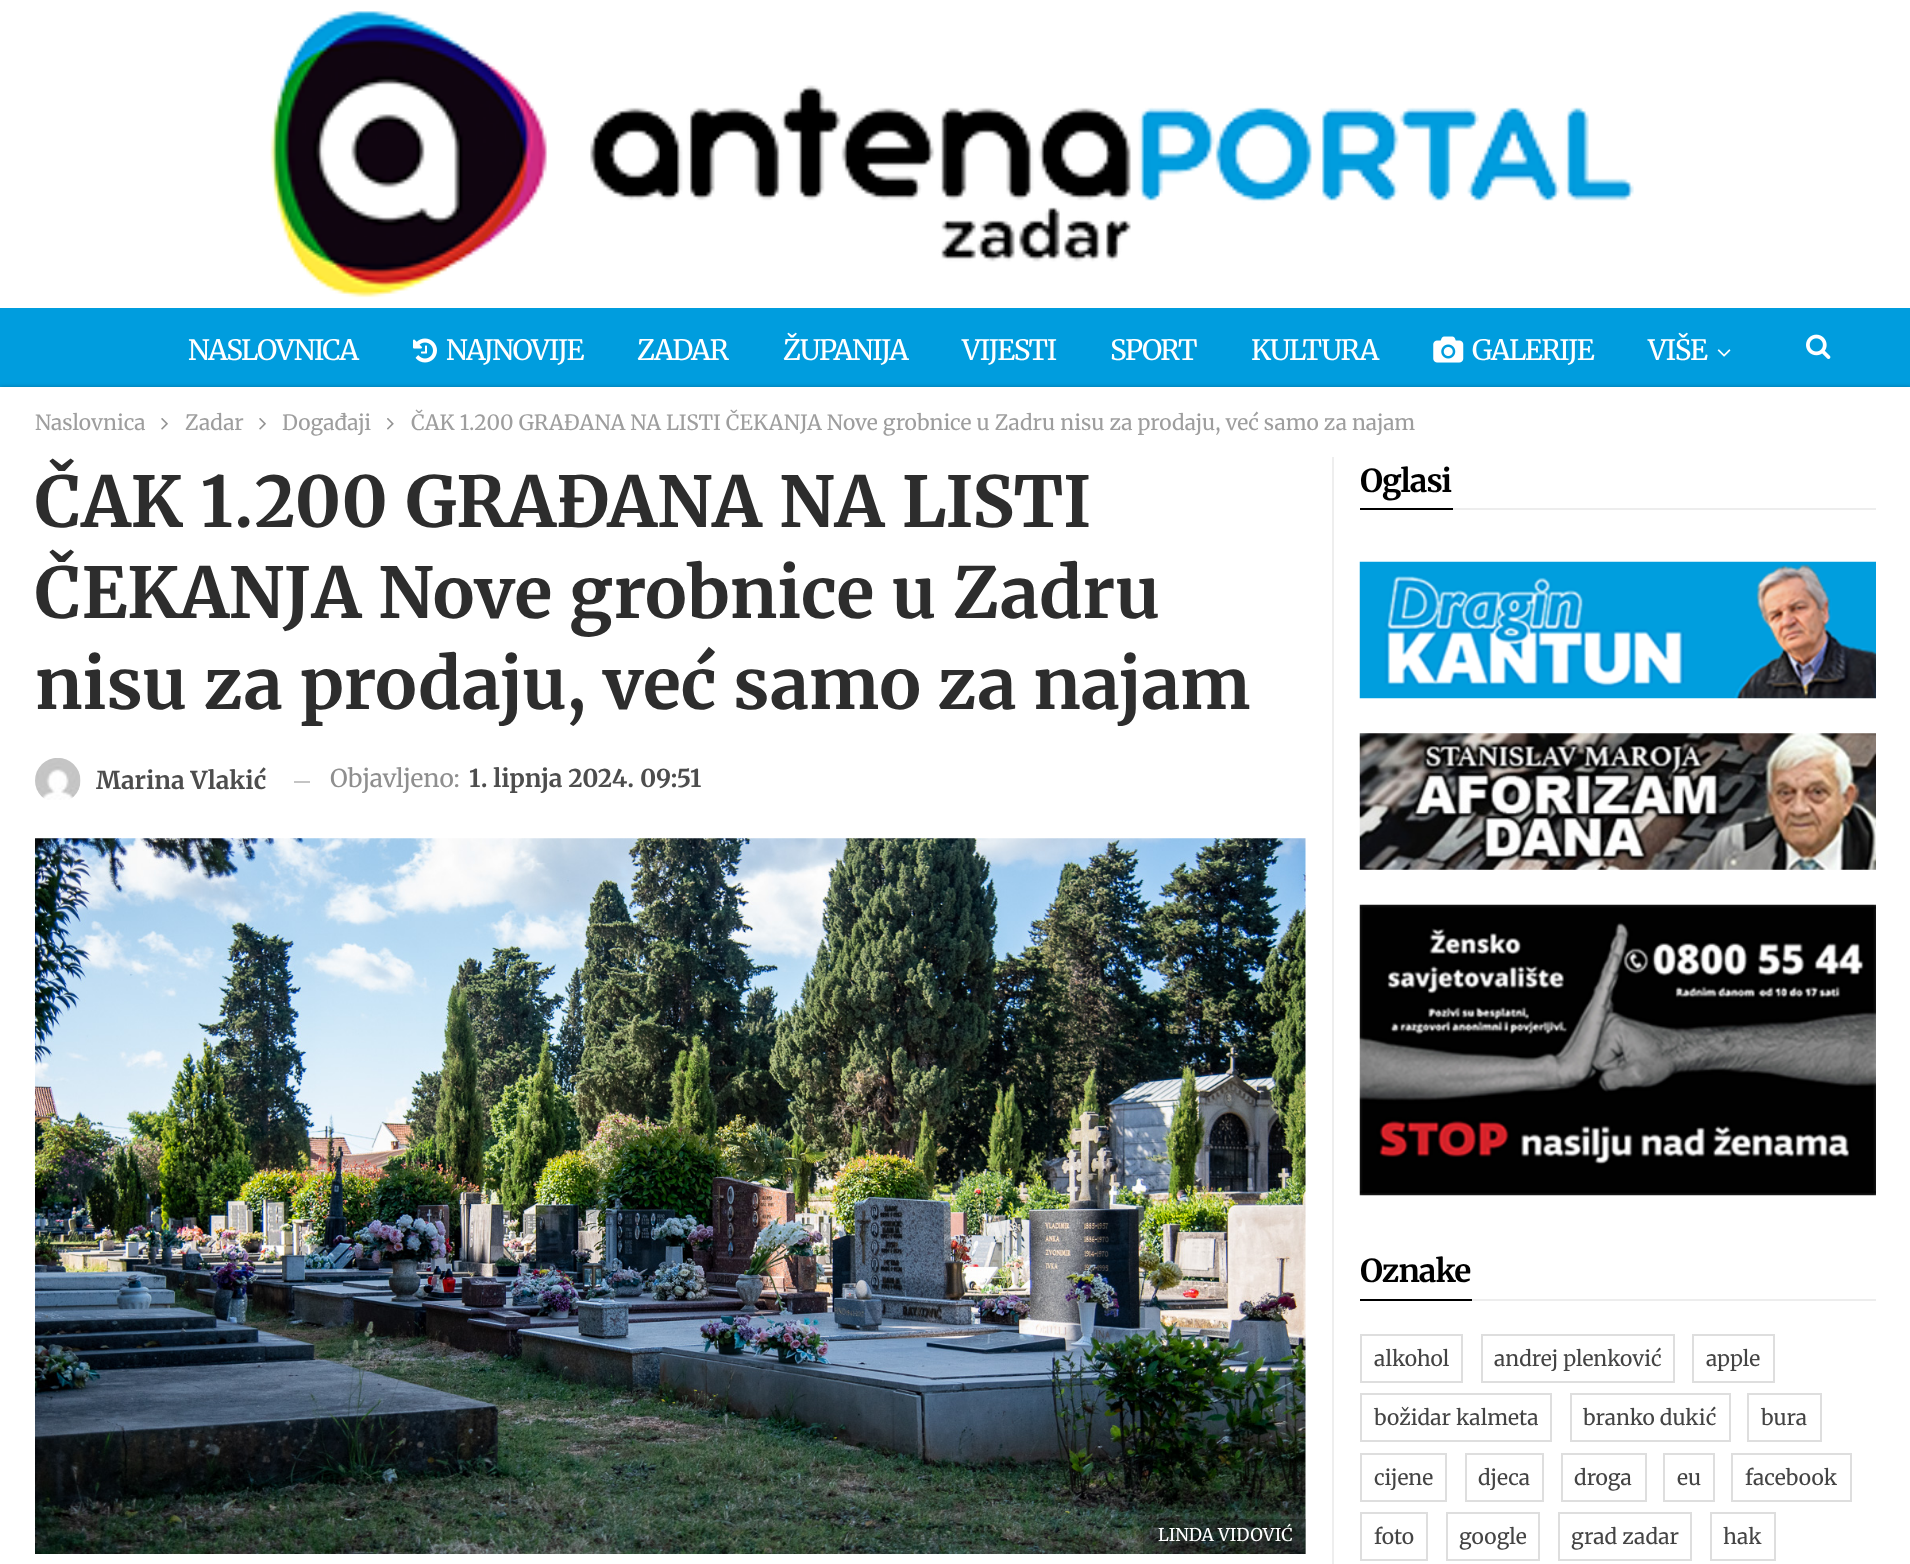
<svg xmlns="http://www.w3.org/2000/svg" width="1910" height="1564">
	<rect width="100%" height="100%" fill="#FFFFFF" />
	<image x="270" y="11" width="1364" height="287" href="assets/img1.png" />
	<rect x="0" y="308" width="1910" height="79" fill="#009DDE" />
	<text x="188" y="360" font-family="Merriweather" font-size="28" letter-spacing="-1.4" fill="#FFFFFF">NASLOVNICA</text>
	<image x="413" y="338" width="24" height="25" href="assets/img2.png" />
	<g font-family="Merriweather" font-size="28" letter-spacing="-1.4" fill="#FFFFFF">
		<text x="446" y="360">NAJNOVIJE</text>
		<text x="637" y="360">ZADAR</text>
		<text x="783" y="360">ŽUPANIJA</text>
		<text x="962" y="360">VIJESTI</text>
		<text x="1110" y="360">SPORT</text>
		<text x="1251" y="360">KULTURA</text>
	</g>
	<image x="1433" y="336" width="31" height="27" href="assets/img3.png" />
	<g font-family="Merriweather" font-size="28" letter-spacing="-1.4" fill="#FFFFFF">
		<text x="1472" y="360">GALERIJE</text>
		<text x="1648" y="360">VIŠE</text>
	</g>
	<image x="1717" y="349" width="14" height="8" href="assets/img4.png" />
	<image x="1806" y="334" width="25" height="25" href="assets/img5.png" />
	<rect x="0" y="387" width="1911" height="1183" fill="#000000" fill-opacity="0.27" filter="blur(2px)" />
	<rect x="0" y="387" width="1910" height="1177" fill="#FFFFFF" />
	<text x="35" y="430" font-family="Merriweather" font-size="21" fill="#9E9E9E">Naslovnica</text>
	<image x="161" y="418" width="7" height="12" href="assets/img6.png" />
	<text x="185" y="430" font-family="Merriweather" font-size="21" fill="#9E9E9E">Zadar</text>
	<image x="259" y="418" width="7" height="12" href="assets/img6.png" />
	<text x="282" y="430" font-family="Merriweather" font-size="21" fill="#9E9E9E">Događaji</text>
	<image x="387" y="418" width="7" height="12" href="assets/img7.png" />
	<text x="411" y="430" font-family="Merriweather" font-size="21" fill="#9E9E9E">ČAK 1.200 GRAĐANA NA LISTI ČEKANJA Nove grobnice u Zadru nisu za prodaju, već samo za najam</text>
	<rect x="1332" y="457" width="2" height="1107" fill="#EEEEEE" />
	<g font-family="Merriweather" font-size="70" font-weight="700" fill="#2D2D2D">
		<text x="35" y="527" word-spacing="1">ČAK 1.200 GRAĐANA NA LISTI</text>
		<text x="35" y="618" word-spacing="0.5">ČEKANJA Nove grobnice u Zadru</text>
		<text x="35" y="709">nisu za prodaju, već samo za najam</text>
	</g>
	<image x="35" y="758" width="46" height="42" href="assets/img8.png" />
	<text x="96" y="789" font-family="Merriweather" font-size="24.5" font-weight="700" fill="#4D4D4D">Marina Vlakić</text>
	<rect x="294" y="781" width="16" height="2" fill="#C4C4C4" />
	<text x="330" y="787" font-family="Merriweather" font-size="24.5" fill="#8F8F8F">Objavljeno:</text>
	<text x="469" y="787" font-family="Merriweather" font-size="24.5" font-weight="700" fill="#4D4D4D">1. lipnja 2024. 09:51</text>
	<image x="35" y="838" width="1271" height="716" href="assets/img9.png" />
	<rect x="1143" y="1519" width="163" height="35" fill="#000000" fill-opacity="0.26" />
	<text x="1158" y="1541" font-family="Merriweather" font-size="17.5" fill="#FFFFFF">LINDA VIDOVIĆ</text>
	<text x="1360" y="492" font-family="Merriweather" font-size="31.5" font-weight="700" letter-spacing="-1" fill="#000000">Oglasi</text>
	<rect x="1360" y="508" width="93" height="2" fill="#000000" />
	<rect x="1453" y="508" width="423" height="2" fill="#EDEDED" />
	<image x="1359" y="561" width="517" height="138" href="assets/img10.png" />
	<image x="1359" y="733" width="517" height="137" href="assets/img11.png" />
	<image x="1359" y="904" width="517" height="292" href="assets/img12.png" />
	<text x="1360" y="1282" font-family="Merriweather" font-size="31.5" font-weight="700" letter-spacing="-1" fill="#000000">Oznake</text>
	<rect x="1360" y="1299" width="112" height="2" fill="#000000" />
	<rect x="1472" y="1299" width="404" height="2" fill="#EDEDED" />
	<rect x="1361" y="1335" width="101" height="47" fill="none" stroke="#DEDEDE" stroke-width="2" />
	<text x="1374" y="1366" font-family="Merriweather" font-size="21" fill="#444444">alkohol</text>
	<rect x="1482" y="1335" width="192" height="47" fill="none" stroke="#DEDEDE" stroke-width="2" />
	<text x="1494" y="1366" font-family="Merriweather" font-size="21" fill="#444444">andrej plenković</text>
	<rect x="1693" y="1335" width="81" height="47" fill="none" stroke="#DEDEDE" stroke-width="2" />
	<text x="1706" y="1366" font-family="Merriweather" font-size="21" fill="#444444">apple</text>
	<rect x="1361" y="1394" width="190" height="47" fill="none" stroke="#DEDEDE" stroke-width="2" />
	<text x="1374" y="1425" font-family="Merriweather" font-size="21" fill="#444444">božidar kalmeta</text>
	<rect x="1571" y="1394" width="159" height="47" fill="none" stroke="#DEDEDE" stroke-width="2" />
	<text x="1583" y="1425" font-family="Merriweather" font-size="21" fill="#444444">branko dukić</text>
	<rect x="1748" y="1394" width="73" height="47" fill="none" stroke="#DEDEDE" stroke-width="2" />
	<text x="1761" y="1425" font-family="Merriweather" font-size="21" fill="#444444">bura</text>
	<rect x="1361" y="1454" width="85" height="47" fill="none" stroke="#DEDEDE" stroke-width="2" />
	<text x="1374" y="1485" font-family="Merriweather" font-size="21" fill="#444444">cijene</text>
	<rect x="1466" y="1454" width="77" height="47" fill="none" stroke="#DEDEDE" stroke-width="2" />
	<text x="1478" y="1485" font-family="Merriweather" font-size="21" fill="#444444">djeca</text>
	<rect x="1562" y="1454" width="84" height="47" fill="none" stroke="#DEDEDE" stroke-width="2" />
	<text x="1574" y="1485" font-family="Merriweather" font-size="21" fill="#444444">droga</text>
	<rect x="1664" y="1454" width="50" height="47" fill="none" stroke="#DEDEDE" stroke-width="2" />
	<text x="1677" y="1485" font-family="Merriweather" font-size="21" fill="#444444">eu</text>
	<rect x="1732" y="1454" width="119" height="47" fill="none" stroke="#DEDEDE" stroke-width="2" />
	<text x="1745" y="1485" font-family="Merriweather" font-size="21" fill="#444444">facebook</text>
	<rect x="1361" y="1513" width="66" height="47" fill="none" stroke="#DEDEDE" stroke-width="2" />
	<text x="1374" y="1544" font-family="Merriweather" font-size="21" fill="#444444">foto</text>
	<rect x="1447" y="1513" width="92" height="47" fill="none" stroke="#DEDEDE" stroke-width="2" />
	<text x="1459" y="1544" font-family="Merriweather" font-size="21" fill="#444444">google</text>
	<rect x="1559" y="1513" width="132" height="47" fill="none" stroke="#DEDEDE" stroke-width="2" />
	<text x="1571" y="1544" font-family="Merriweather" font-size="21" fill="#444444">grad zadar</text>
	<rect x="1711" y="1513" width="64" height="47" fill="none" stroke="#DEDEDE" stroke-width="2" />
	<text x="1723" y="1544" font-family="Merriweather" font-size="21" fill="#444444">hak</text>
</svg>
